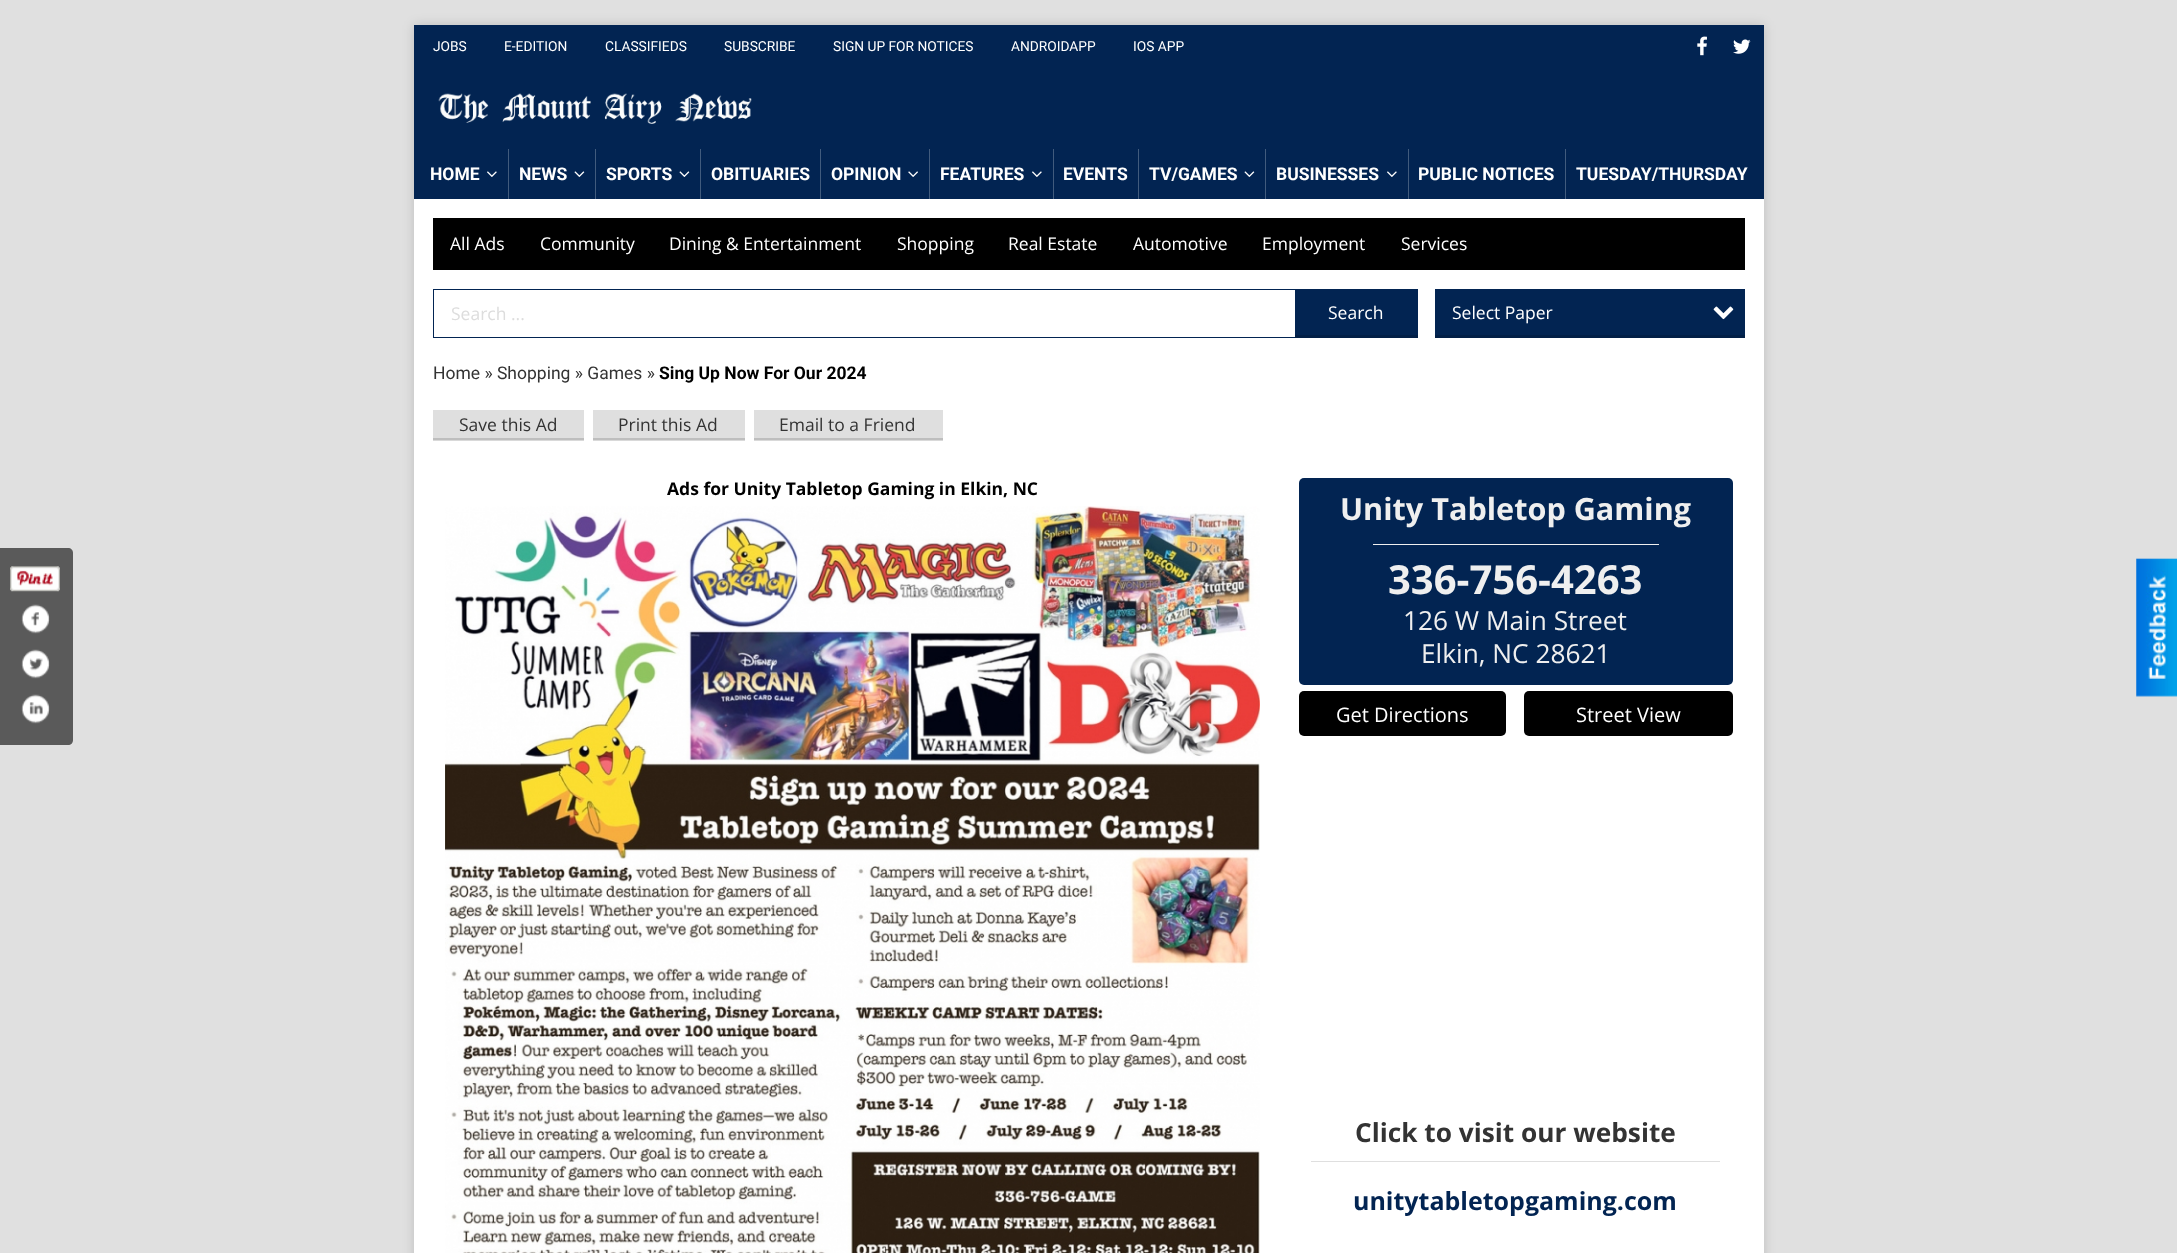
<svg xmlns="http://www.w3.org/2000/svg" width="2177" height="1253">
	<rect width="100%" height="100%" fill="#E0E0E0" />
	<path d="M0 548H68C71 548 73 550 73 553V740C73 743 71 745 68 745H0Z" fill="#5A5A5A" />
	<image x="10" y="566" width="50" height="26" href="assets/img1.png" />
	<image x="21" y="604" width="29" height="30" href="assets/img2.png" />
	<image x="21" y="649" width="29" height="30" href="assets/img3.png" />
	<image x="21" y="694" width="29" height="30" href="assets/img4.png" />
	<rect x="414" y="25" width="1350" height="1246" fill="#000000" fill-opacity="0.15" filter="blur(6px)" />
	<rect x="414" y="199" width="1350" height="1054" fill="#FFFFFF" />
	<rect x="754" y="440" width="189" height="1" fill="#D9D9D9" />
	<rect x="593" y="440" width="152" height="1" fill="#D9D9D9" />
	<rect x="433" y="440" width="151" height="1" fill="#D9D9D9" />
	<rect x="414" y="25" width="1350" height="174" fill="#022452" />
	<g font-family="Roboto" font-size="13.75" fill="#FFFFFF">
		<text x="433" y="51">JOBS</text>
		<text x="504" y="51">E-EDITION</text>
		<text x="605" y="51">CLASSIFIEDS</text>
		<text x="724" y="51">SUBSCRIBE</text>
		<text x="833" y="51">SIGN UP FOR NOTICES</text>
		<text x="1011" y="51">ANDROIDAPP</text>
		<text x="1133" y="51">IOS APP</text>
	</g>
	<image x="1697" y="36" width="10" height="20" href="assets/img5.png" />
	<image x="1733" y="39" width="18" height="15" href="assets/img6.png" />
	<image x="438" y="93" width="314" height="31" href="assets/img7.png" />
	<rect x="508" y="149" width="1" height="50" fill="#415B7D" />
	<text x="430" y="180" font-family="Roboto" font-size="17.5" font-weight="700" fill="#FFFFFF">HOME</text>
	<image x="487" y="171" width="10" height="6" href="assets/img8.png" />
	<rect x="595" y="149" width="1" height="50" fill="#415B7D" />
	<text x="519" y="180" font-family="Roboto" font-size="17.5" font-weight="700" fill="#FFFFFF">NEWS</text>
	<image x="574" y="171" width="11" height="6" href="assets/img9.png" />
	<rect x="700" y="149" width="1" height="50" fill="#415B7D" />
	<text x="606" y="180" font-family="Roboto" font-size="17.5" font-weight="700" fill="#FFFFFF">SPORTS</text>
	<image x="679" y="171" width="11" height="6" href="assets/img9.png" />
	<rect x="820" y="149" width="1" height="50" fill="#415B7D" />
	<text x="711" y="180" font-family="Roboto" font-size="17.5" font-weight="700" fill="#FFFFFF">OBITUARIES</text>
	<rect x="929" y="149" width="1" height="50" fill="#415B7D" />
	<text x="831" y="180" font-family="Roboto" font-size="17.5" font-weight="700" fill="#FFFFFF">OPINION</text>
	<image x="908" y="171" width="10" height="6" href="assets/img10.png" />
	<rect x="1053" y="149" width="1" height="50" fill="#415B7D" />
	<text x="940" y="180" font-family="Roboto" font-size="17.5" font-weight="700" fill="#FFFFFF">FEATURES</text>
	<image x="1032" y="171" width="10" height="6" href="assets/img8.png" />
	<rect x="1138" y="149" width="1" height="50" fill="#415B7D" />
	<text x="1063" y="180" font-family="Roboto" font-size="17.5" font-weight="700" fill="#FFFFFF">EVENTS</text>
	<rect x="1265" y="149" width="1" height="50" fill="#415B7D" />
	<text x="1149" y="180" font-family="Roboto" font-size="17.5" font-weight="700" fill="#FFFFFF">TV/GAMES</text>
	<image x="1244" y="171" width="11" height="6" href="assets/img9.png" />
	<rect x="1408" y="149" width="1" height="50" fill="#415B7D" />
	<text x="1276" y="180" font-family="Roboto" font-size="17.5" font-weight="700" fill="#FFFFFF">BUSINESSES</text>
	<image x="1387" y="171" width="10" height="6" href="assets/img8.png" />
	<rect x="1565" y="149" width="1" height="50" fill="#415B7D" />
	<g font-family="Roboto" font-size="17.5" font-weight="700" fill="#FFFFFF">
		<text x="1418" y="180">PUBLIC NOTICES</text>
		<text x="1576" y="180">TUESDAY/THURSDAY</text>
	</g>
	<rect x="433" y="218" width="1312" height="52" fill="#000000" />
	<g font-family="Open Sans" font-size="17.5" fill="#FFFFFF">
		<text x="450" y="250">All Ads</text>
		<text x="540" y="250">Community</text>
		<text x="669" y="250">Dining &amp; Entertainment</text>
		<text x="897" y="250">Shopping</text>
		<text x="1008" y="250">Real Estate</text>
		<text x="1133" y="250">Automotive</text>
		<text x="1262" y="250">Employment</text>
		<text x="1401" y="250">Services</text>
	</g>
	<rect x="433.5" y="289.5" width="984" height="48" fill="none" stroke="#022452" />
	<text x="451" y="320" font-family="Open Sans" font-size="17.5" fill="#DDDDDD">Search ...</text>
	<rect x="1295" y="290" width="122" height="45" fill="#022452" />
	<rect x="1295" y="335" width="123" height="3" fill="#021F46" />
	<text x="1328" y="319" font-family="Open Sans" font-size="17.5" fill="#FFFFFF">Search</text>
	<rect x="1435" y="289" width="310" height="46" fill="#022452" />
	<rect x="1435" y="335" width="310" height="3" fill="#021F46" />
	<text x="1452" y="319" font-family="Open Sans" font-size="17.5" fill="#FFFFFF">Select Paper</text>
	<image x="1713" y="306" width="21" height="14" href="assets/img11.png" />
	<text x="433" y="379" font-family="Roboto" font-size="17.5" fill="#333333">Home » Shopping » Games »</text>
	<text x="659" y="379" font-family="Roboto" font-size="17.5" font-weight="700" fill="#000000">Sing Up Now For Our 2024</text>
	<rect x="433" y="410" width="151" height="28" fill="#DFDFDF" />
	<rect x="433" y="438" width="151" height="2" fill="#BEBEBE" />
	<text x="459" y="431" font-family="Open Sans" font-size="17.5" fill="#333333">Save this Ad</text>
	<rect x="593" y="410" width="152" height="28" fill="#DFDFDF" />
	<rect x="593" y="438" width="152" height="2" fill="#BEBEBE" />
	<text x="618" y="431" font-family="Open Sans" font-size="17.5" fill="#333333">Print this Ad</text>
	<rect x="754" y="410" width="189" height="28" fill="#DFDFDF" />
	<rect x="754" y="438" width="189" height="2" fill="#BEBEBE" />
	<text x="779" y="431" font-family="Open Sans" font-size="17.5" fill="#333333">Email to a Friend</text>
	<text x="667" y="495" font-family="Open Sans" font-size="17.5" font-weight="700" fill="#000000">Ads for Unity Tabletop Gaming in Elkin, NC</text>
	<image x="445" y="506" width="815" height="747" href="assets/img12.png" />
	<rect x="1299" y="478" width="434" height="207" rx="5" fill="#022452" />
	<text x="1340" y="520" font-family="Open Sans" font-size="30.6" font-weight="700" fill="#EFEFEF">Unity Tabletop Gaming</text>
	<rect x="1373" y="544" width="286" height="1" fill="#EFEFEF" />
	<text x="1388" y="594" font-family="Open Sans" font-size="40" font-weight="700" fill="#EFEFEF">336-756-4263</text>
	<g font-family="Open Sans" font-size="26.25" fill="#EFEFEF">
		<text x="1403" y="630">126 W Main Street</text>
		<text x="1421" y="663">Elkin, NC 28621</text>
	</g>
	<rect x="1299" y="691" width="207" height="45" rx="5" fill="#000000" />
	<text x="1336" y="722" font-family="Open Sans" font-size="20" fill="#FFFFFF">Get Directions</text>
	<rect x="1524" y="691" width="209" height="45" rx="5" fill="#000000" />
	<text x="1576" y="722" font-family="Open Sans" font-size="20" fill="#FFFFFF">Street View</text>
	<rect x="1311" y="1161" width="409" height="1" fill="#DFDFDF" />
	<text x="1355" y="1142" font-family="Open Sans" font-size="26.25" font-weight="700" fill="#333333">Click to visit our website</text>
	<text x="1353" y="1210" font-family="Open Sans" font-size="25" font-weight="700" fill="#022452">unitytabletopgaming.com</text>
	<image x="2136" y="558" width="41" height="139" href="assets/img13.png" />
</svg>
